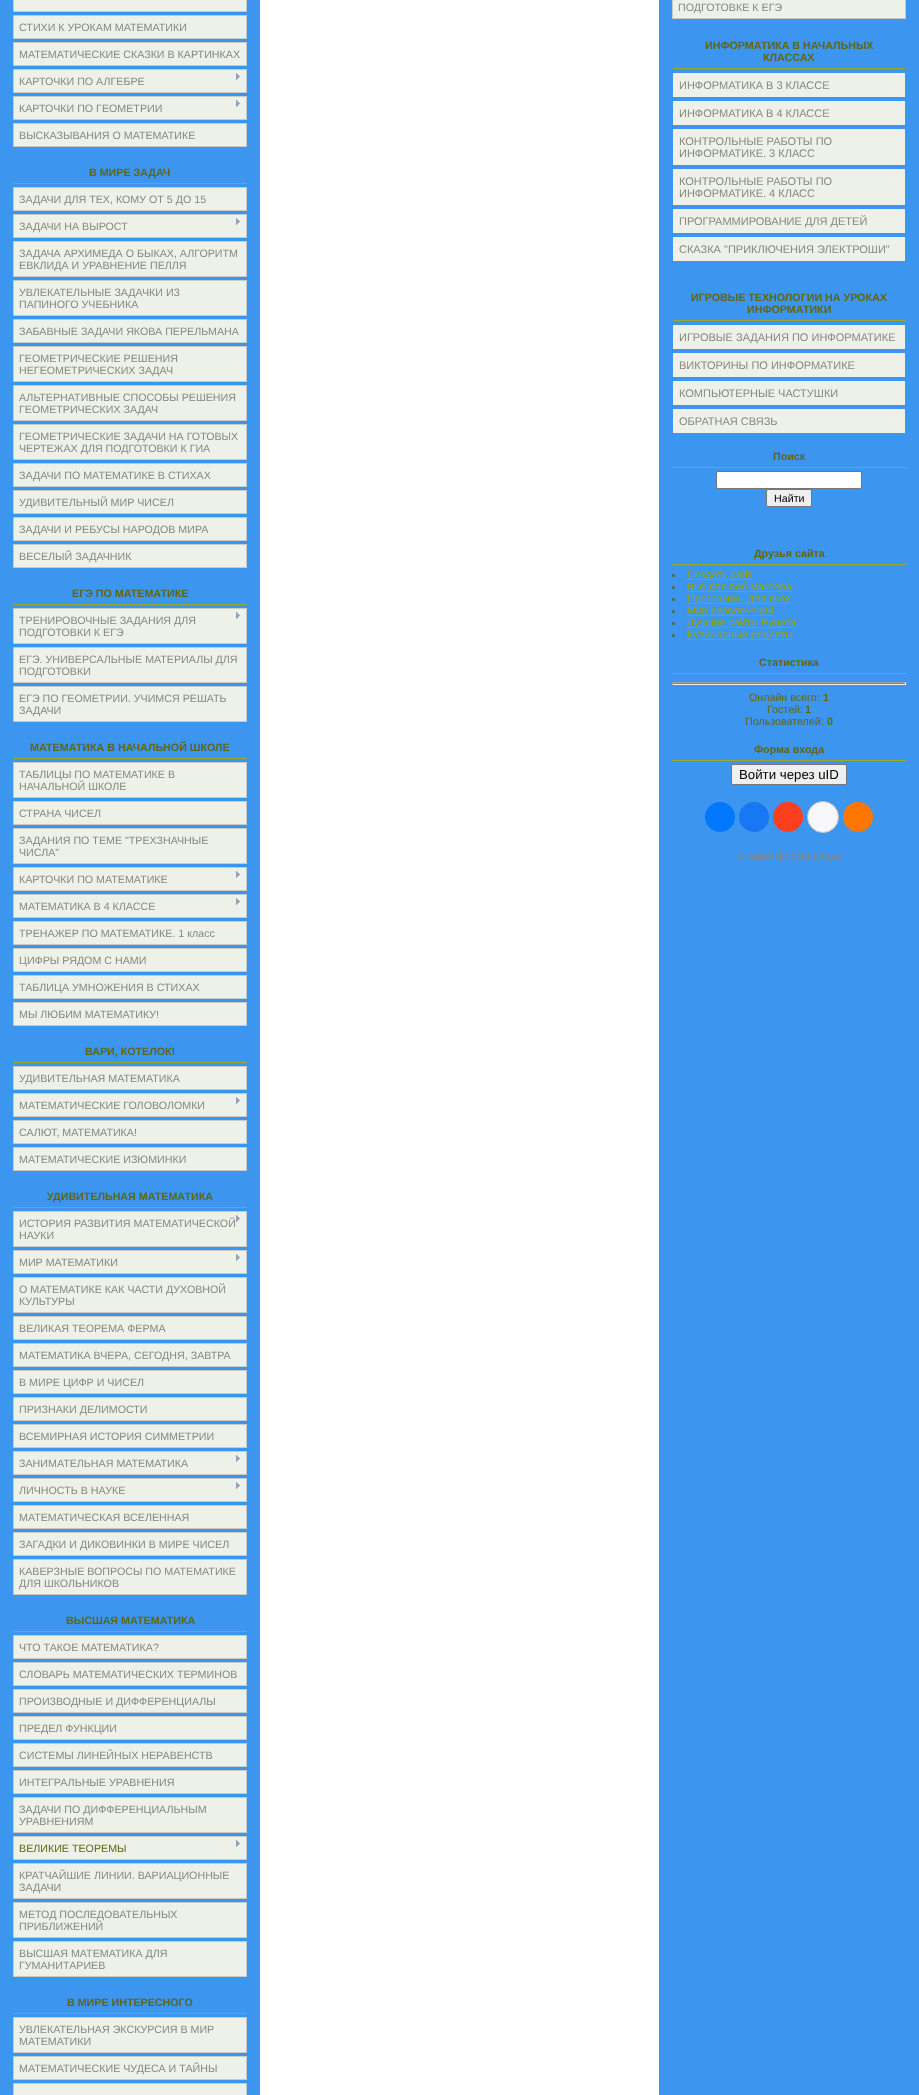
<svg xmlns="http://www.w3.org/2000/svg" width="919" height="2095">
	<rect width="100%" height="100%" fill="#FFFFFF" />
	<rect x="0" y="0" width="260" height="2095" fill="#3C95EF" />
	<rect x="13.5" y="-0.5" width="233" height="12" fill="#EEF1E8" stroke="#C8C9C2" />
	<rect x="13.5" y="15.5" width="233" height="23" fill="#EEF1E8" stroke="#C8C9C2" />
	<text x="19" y="31" font-family="Liberation Sans" font-size="10.7" fill="#868882">СТИХИ К УРОКАМ МАТЕМАТИКИ</text>
	<rect x="13.5" y="42.5" width="233" height="23" fill="#EEF1E8" stroke="#C8C9C2" />
	<text x="19" y="58" font-family="Liberation Sans" font-size="10.7" fill="#868882">МАТЕМАТИЧЕСКИЕ СКАЗКИ В КАРТИНКАХ</text>
	<rect x="13.5" y="69.5" width="233" height="23" fill="#EEF1E8" stroke="#C8C9C2" />
	<text x="19" y="85" font-family="Liberation Sans" font-size="10.7" fill="#868882">КАРТОЧКИ ПО АЛГЕБРЕ</text>
	<image x="236" y="73" width="4" height="7" href="assets/img1.png" />
	<rect x="13.5" y="96.5" width="233" height="23" fill="#EEF1E8" stroke="#C8C9C2" />
	<text x="19" y="112" font-family="Liberation Sans" font-size="10.7" fill="#868882">КАРТОЧКИ ПО ГЕОМЕТРИИ</text>
	<image x="236" y="100" width="4" height="7" href="assets/img1.png" />
	<rect x="13.5" y="123.5" width="233" height="23" fill="#EEF1E8" stroke="#C8C9C2" />
	<text x="19" y="139" font-family="Liberation Sans" font-size="10.7" fill="#868882">ВЫСКАЗЫВАНИЯ О МАТЕМАТИКЕ</text>
	<rect x="13" y="183" width="234" height="1" fill="#9CA725" />
	<text x="89" y="176" font-family="Liberation Sans" font-size="10.7" font-weight="700" fill="#606615">В МИРЕ ЗАДАЧ</text>
	<rect x="13.5" y="187.5" width="233" height="23" fill="#EEF1E8" stroke="#C8C9C2" />
	<text x="19" y="203" font-family="Liberation Sans" font-size="10.7" fill="#868882">ЗАДАЧИ ДЛЯ ТЕХ, КОМУ ОТ 5 ДО 15</text>
	<rect x="13.5" y="214.5" width="233" height="23" fill="#EEF1E8" stroke="#C8C9C2" />
	<text x="19" y="230" font-family="Liberation Sans" font-size="10.7" fill="#868882">ЗАДАЧИ НА ВЫРОСТ</text>
	<image x="236" y="218" width="4" height="7" href="assets/img1.png" />
	<rect x="13.5" y="241.5" width="233" height="35" fill="#EEF1E8" stroke="#C8C9C2" />
	<g font-family="Liberation Sans" font-size="10.7" fill="#868882">
		<text x="19" y="257">ЗАДАЧА АРХИМЕДА О БЫКАХ, АЛГОРИТМ</text>
		<text x="19" y="269">ЕВКЛИДА И УРАВНЕНИЕ ПЕЛЛЯ</text>
	</g>
	<rect x="13.5" y="280.5" width="233" height="35" fill="#EEF1E8" stroke="#C8C9C2" />
	<g font-family="Liberation Sans" font-size="10.7" fill="#868882">
		<text x="19" y="296">УВЛЕКАТЕЛЬНЫЕ ЗАДАЧКИ ИЗ</text>
		<text x="19" y="308">ПАПИНОГО УЧЕБНИКА</text>
	</g>
	<rect x="13.5" y="319.5" width="233" height="23" fill="#EEF1E8" stroke="#C8C9C2" />
	<text x="19" y="335" font-family="Liberation Sans" font-size="10.7" fill="#868882">ЗАБАВНЫЕ ЗАДАЧИ ЯКОВА ПЕРЕЛЬМАНА</text>
	<rect x="13.5" y="346.5" width="233" height="35" fill="#EEF1E8" stroke="#C8C9C2" />
	<g font-family="Liberation Sans" font-size="10.7" fill="#868882">
		<text x="19" y="362">ГЕОМЕТРИЧЕСКИЕ РЕШЕНИЯ</text>
		<text x="19" y="374">НЕГЕОМЕТРИЧЕСКИХ ЗАДАЧ</text>
	</g>
	<rect x="13.5" y="385.5" width="233" height="35" fill="#EEF1E8" stroke="#C8C9C2" />
	<g font-family="Liberation Sans" font-size="10.7" fill="#868882">
		<text x="19" y="401">АЛЬТЕРНАТИВНЫЕ СПОСОБЫ РЕШЕНИЯ</text>
		<text x="19" y="413">ГЕОМЕТРИЧЕСКИХ ЗАДАЧ</text>
	</g>
	<rect x="13.5" y="424.5" width="233" height="35" fill="#EEF1E8" stroke="#C8C9C2" />
	<g font-family="Liberation Sans" font-size="10.7" fill="#868882">
		<text x="19" y="440">ГЕОМЕТРИЧЕСКИЕ ЗАДАЧИ НА ГОТОВЫХ</text>
		<text x="19" y="452">ЧЕРТЕЖАХ ДЛЯ ПОДГОТОВКИ К ГИА</text>
	</g>
	<rect x="13.5" y="463.5" width="233" height="23" fill="#EEF1E8" stroke="#C8C9C2" />
	<text x="19" y="479" font-family="Liberation Sans" font-size="10.7" fill="#868882">ЗАДАЧИ ПО МАТЕМАТИКЕ В СТИХАХ</text>
	<rect x="13.5" y="490.5" width="233" height="23" fill="#EEF1E8" stroke="#C8C9C2" />
	<text x="19" y="506" font-family="Liberation Sans" font-size="10.7" fill="#868882">УДИВИТЕЛЬНЫЙ МИР ЧИСЕЛ</text>
	<rect x="13.5" y="517.5" width="233" height="23" fill="#EEF1E8" stroke="#C8C9C2" />
	<text x="19" y="533" font-family="Liberation Sans" font-size="10.7" fill="#868882">ЗАДАЧИ И РЕБУСЫ НАРОДОВ МИРА</text>
	<rect x="13.5" y="544.5" width="233" height="23" fill="#EEF1E8" stroke="#C8C9C2" />
	<text x="19" y="560" font-family="Liberation Sans" font-size="10.7" fill="#868882">ВЕСЕЛЫЙ ЗАДАЧНИК</text>
	<rect x="13" y="604" width="234" height="1" fill="#9CA725" />
	<text x="72" y="597" font-family="Liberation Sans" font-size="10.7" font-weight="700" fill="#606615">ЕГЭ ПО МАТЕМАТИКЕ</text>
	<rect x="13.5" y="608.5" width="233" height="35" fill="#EEF1E8" stroke="#C8C9C2" />
	<text x="19" y="624" font-family="Liberation Sans" font-size="10.7" fill="#868882">ТРЕНИРОВОЧНЫЕ ЗАДАНИЯ ДЛЯ</text>
	<image x="236" y="612" width="4" height="7" href="assets/img1.png" />
	<text x="19" y="636" font-family="Liberation Sans" font-size="10.7" fill="#868882">ПОДГОТОВКИ К ЕГЭ</text>
	<rect x="13.5" y="647.5" width="233" height="35" fill="#EEF1E8" stroke="#C8C9C2" />
	<g font-family="Liberation Sans" font-size="10.7" fill="#868882">
		<text x="19" y="663">ЕГЭ. УНИВЕРСАЛЬНЫЕ МАТЕРИАЛЫ ДЛЯ</text>
		<text x="19" y="675">ПОДГОТОВКИ</text>
	</g>
	<rect x="13.5" y="686.5" width="233" height="35" fill="#EEF1E8" stroke="#C8C9C2" />
	<g font-family="Liberation Sans" font-size="10.7" fill="#868882">
		<text x="19" y="702">ЕГЭ ПО ГЕОМЕТРИИ. УЧИМСЯ РЕШАТЬ</text>
		<text x="19" y="714">ЗАДАЧИ</text>
	</g>
	<rect x="13" y="758" width="234" height="1" fill="#9CA725" />
	<text x="30" y="751" font-family="Liberation Sans" font-size="10.7" font-weight="700" fill="#606615">МАТЕМАТИКА В НАЧАЛЬНОЙ ШКОЛЕ</text>
	<rect x="13.5" y="762.5" width="233" height="35" fill="#EEF1E8" stroke="#C8C9C2" />
	<g font-family="Liberation Sans" font-size="10.7" fill="#868882">
		<text x="19" y="778">ТАБЛИЦЫ ПО МАТЕМАТИКЕ В</text>
		<text x="19" y="790">НАЧАЛЬНОЙ ШКОЛЕ</text>
	</g>
	<rect x="13.5" y="801.5" width="233" height="23" fill="#EEF1E8" stroke="#C8C9C2" />
	<text x="19" y="817" font-family="Liberation Sans" font-size="10.7" fill="#868882">СТРАНА ЧИСЕЛ</text>
	<rect x="13.5" y="828.5" width="233" height="35" fill="#EEF1E8" stroke="#C8C9C2" />
	<g font-family="Liberation Sans" font-size="10.7" fill="#868882">
		<text x="19" y="844">ЗАДАНИЯ ПО ТЕМЕ "ТРЕХЗНАЧНЫЕ</text>
		<text x="19" y="856">ЧИСЛА"</text>
	</g>
	<rect x="13.5" y="867.5" width="233" height="23" fill="#EEF1E8" stroke="#C8C9C2" />
	<text x="19" y="883" font-family="Liberation Sans" font-size="10.7" fill="#868882">КАРТОЧКИ ПО МАТЕМАТИКЕ</text>
	<image x="236" y="871" width="4" height="7" href="assets/img1.png" />
	<rect x="13.5" y="894.5" width="233" height="23" fill="#EEF1E8" stroke="#C8C9C2" />
	<text x="19" y="910" font-family="Liberation Sans" font-size="10.7" fill="#868882">МАТЕМАТИКА В 4 КЛАССЕ</text>
	<image x="236" y="898" width="4" height="7" href="assets/img1.png" />
	<rect x="13.5" y="921.5" width="233" height="23" fill="#EEF1E8" stroke="#C8C9C2" />
	<text x="19" y="937" font-family="Liberation Sans" font-size="10.7" fill="#868882">ТРЕНАЖЕР ПО МАТЕМАТИКЕ. 1 класс</text>
	<rect x="13.5" y="948.5" width="233" height="23" fill="#EEF1E8" stroke="#C8C9C2" />
	<text x="19" y="964" font-family="Liberation Sans" font-size="10.7" fill="#868882">ЦИФРЫ РЯДОМ С НАМИ</text>
	<rect x="13.5" y="975.5" width="233" height="23" fill="#EEF1E8" stroke="#C8C9C2" />
	<text x="19" y="991" font-family="Liberation Sans" font-size="10.7" fill="#868882">ТАБЛИЦА УМНОЖЕНИЯ В СТИХАХ</text>
	<rect x="13.5" y="1002.5" width="233" height="23" fill="#EEF1E8" stroke="#C8C9C2" />
	<text x="19" y="1018" font-family="Liberation Sans" font-size="10.7" fill="#868882">МЫ ЛЮБИМ МАТЕМАТИКУ!</text>
	<rect x="13" y="1062" width="234" height="1" fill="#9CA725" />
	<text x="85" y="1055" font-family="Liberation Sans" font-size="10.7" font-weight="700" fill="#606615">ВАРИ, КОТЕЛОК!</text>
	<rect x="13.5" y="1066.5" width="233" height="23" fill="#EEF1E8" stroke="#C8C9C2" />
	<text x="19" y="1082" font-family="Liberation Sans" font-size="10.7" fill="#868882">УДИВИТЕЛЬНАЯ МАТЕМАТИКА</text>
	<rect x="13.5" y="1093.5" width="233" height="23" fill="#EEF1E8" stroke="#C8C9C2" />
	<text x="19" y="1109" font-family="Liberation Sans" font-size="10.7" fill="#868882">МАТЕМАТИЧЕСКИЕ ГОЛОВОЛОМКИ</text>
	<image x="236" y="1097" width="4" height="7" href="assets/img1.png" />
	<rect x="13.5" y="1120.5" width="233" height="23" fill="#EEF1E8" stroke="#C8C9C2" />
	<text x="19" y="1136" font-family="Liberation Sans" font-size="10.7" fill="#868882">САЛЮТ, МАТЕМАТИКА!</text>
	<rect x="13.5" y="1147.5" width="233" height="23" fill="#EEF1E8" stroke="#C8C9C2" />
	<text x="19" y="1163" font-family="Liberation Sans" font-size="10.7" fill="#868882">МАТЕМАТИЧЕСКИЕ ИЗЮМИНКИ</text>
	<rect x="13" y="1207" width="234" height="1" fill="#9CA725" />
	<text x="47" y="1200" font-family="Liberation Sans" font-size="10.7" font-weight="700" fill="#606615">УДИВИТЕЛЬНАЯ МАТЕМАТИКА</text>
	<rect x="13.5" y="1211.5" width="233" height="35" fill="#EEF1E8" stroke="#C8C9C2" />
	<text x="19" y="1227" font-family="Liberation Sans" font-size="10.7" fill="#868882">ИСТОРИЯ РАЗВИТИЯ МАТЕМАТИЧЕСКОЙ</text>
	<image x="236" y="1215" width="4" height="7" href="assets/img1.png" />
	<text x="19" y="1239" font-family="Liberation Sans" font-size="10.7" fill="#868882">НАУКИ</text>
	<rect x="13.5" y="1250.5" width="233" height="23" fill="#EEF1E8" stroke="#C8C9C2" />
	<text x="19" y="1266" font-family="Liberation Sans" font-size="10.7" fill="#868882">МИР МАТЕМАТИКИ</text>
	<image x="236" y="1254" width="4" height="7" href="assets/img1.png" />
	<rect x="13.5" y="1277.5" width="233" height="35" fill="#EEF1E8" stroke="#C8C9C2" />
	<g font-family="Liberation Sans" font-size="10.7" fill="#868882">
		<text x="19" y="1293">О МАТЕМАТИКЕ КАК ЧАСТИ ДУХОВНОЙ</text>
		<text x="19" y="1305">КУЛЬТУРЫ</text>
	</g>
	<rect x="13.5" y="1316.5" width="233" height="23" fill="#EEF1E8" stroke="#C8C9C2" />
	<text x="19" y="1332" font-family="Liberation Sans" font-size="10.7" fill="#868882">ВЕЛИКАЯ ТЕОРЕМА ФЕРМА</text>
	<rect x="13.5" y="1343.5" width="233" height="23" fill="#EEF1E8" stroke="#C8C9C2" />
	<text x="19" y="1359" font-family="Liberation Sans" font-size="10.7" fill="#868882">МАТЕМАТИКА ВЧЕРА, СЕГОДНЯ, ЗАВТРА</text>
	<rect x="13.5" y="1370.5" width="233" height="23" fill="#EEF1E8" stroke="#C8C9C2" />
	<text x="19" y="1386" font-family="Liberation Sans" font-size="10.7" fill="#868882">В МИРЕ ЦИФР И ЧИСЕЛ</text>
	<rect x="13.5" y="1397.5" width="233" height="23" fill="#EEF1E8" stroke="#C8C9C2" />
	<text x="19" y="1413" font-family="Liberation Sans" font-size="10.7" fill="#868882">ПРИЗНАКИ ДЕЛИМОСТИ</text>
	<rect x="13.5" y="1424.5" width="233" height="23" fill="#EEF1E8" stroke="#C8C9C2" />
	<text x="19" y="1440" font-family="Liberation Sans" font-size="10.7" fill="#868882">ВСЕМИРНАЯ ИСТОРИЯ СИММЕТРИИ</text>
	<rect x="13.5" y="1451.5" width="233" height="23" fill="#EEF1E8" stroke="#C8C9C2" />
	<text x="19" y="1467" font-family="Liberation Sans" font-size="10.7" fill="#868882">ЗАНИМАТЕЛЬНАЯ МАТЕМАТИКА</text>
	<image x="236" y="1455" width="4" height="7" href="assets/img1.png" />
	<rect x="13.5" y="1478.5" width="233" height="23" fill="#EEF1E8" stroke="#C8C9C2" />
	<text x="19" y="1494" font-family="Liberation Sans" font-size="10.7" fill="#868882">ЛИЧНОСТЬ В НАУКЕ</text>
	<image x="236" y="1482" width="4" height="7" href="assets/img1.png" />
	<rect x="13.5" y="1505.5" width="233" height="23" fill="#EEF1E8" stroke="#C8C9C2" />
	<text x="19" y="1521" font-family="Liberation Sans" font-size="10.7" fill="#868882">МАТЕМАТИЧЕСКАЯ ВСЕЛЕННАЯ</text>
	<rect x="13.5" y="1532.5" width="233" height="23" fill="#EEF1E8" stroke="#C8C9C2" />
	<text x="19" y="1548" font-family="Liberation Sans" font-size="10.7" fill="#868882">ЗАГАДКИ И ДИКОВИНКИ В МИРЕ ЧИСЕЛ</text>
	<rect x="13.5" y="1559.5" width="233" height="35" fill="#EEF1E8" stroke="#C8C9C2" />
	<g font-family="Liberation Sans" font-size="10.7" fill="#868882">
		<text x="19" y="1575">КАВЕРЗНЫЕ ВОПРОСЫ ПО МАТЕМАТИКЕ</text>
		<text x="19" y="1587">ДЛЯ ШКОЛЬНИКОВ</text>
	</g>
	<rect x="13" y="1631" width="234" height="1" fill="#9CA725" />
	<text x="66" y="1624" font-family="Liberation Sans" font-size="10.7" font-weight="700" fill="#606615">ВЫСШАЯ МАТЕМАТИКА</text>
	<rect x="13.5" y="1635.5" width="233" height="23" fill="#EEF1E8" stroke="#C8C9C2" />
	<text x="19" y="1651" font-family="Liberation Sans" font-size="10.7" fill="#868882">ЧТО ТАКОЕ МАТЕМАТИКА?</text>
	<rect x="13.5" y="1662.5" width="233" height="23" fill="#EEF1E8" stroke="#C8C9C2" />
	<text x="19" y="1678" font-family="Liberation Sans" font-size="10.7" fill="#868882">СЛОВАРЬ МАТЕМАТИЧЕСКИХ ТЕРМИНОВ</text>
	<rect x="13.5" y="1689.5" width="233" height="23" fill="#EEF1E8" stroke="#C8C9C2" />
	<text x="19" y="1705" font-family="Liberation Sans" font-size="10.7" fill="#868882">ПРОИЗВОДНЫЕ И ДИФФЕРЕНЦИАЛЫ</text>
	<rect x="13.5" y="1716.5" width="233" height="23" fill="#EEF1E8" stroke="#C8C9C2" />
	<text x="19" y="1732" font-family="Liberation Sans" font-size="10.7" fill="#868882">ПРЕДЕЛ ФУНКЦИИ</text>
	<rect x="13.5" y="1743.5" width="233" height="23" fill="#EEF1E8" stroke="#C8C9C2" />
	<text x="19" y="1759" font-family="Liberation Sans" font-size="10.7" fill="#868882">СИСТЕМЫ ЛИНЕЙНЫХ НЕРАВЕНСТВ</text>
	<rect x="13.5" y="1770.5" width="233" height="23" fill="#EEF1E8" stroke="#C8C9C2" />
	<text x="19" y="1786" font-family="Liberation Sans" font-size="10.7" fill="#868882">ИНТЕГРАЛЬНЫЕ УРАВНЕНИЯ</text>
	<rect x="13.5" y="1797.5" width="233" height="35" fill="#EEF1E8" stroke="#C8C9C2" />
	<g font-family="Liberation Sans" font-size="10.7" fill="#868882">
		<text x="19" y="1813">ЗАДАЧИ ПО ДИФФЕРЕНЦИАЛЬНЫМ</text>
		<text x="19" y="1825">УРАВНЕНИЯМ</text>
	</g>
	<rect x="13.5" y="1836.5" width="233" height="23" fill="#EEF1E8" stroke="#C8C9C2" />
	<text x="19" y="1852" font-family="Liberation Sans" font-size="10.7" fill="#606615">ВЕЛИКИЕ ТЕОРЕМЫ</text>
	<image x="236" y="1840" width="4" height="7" href="assets/img1.png" />
	<rect x="13.5" y="1863.5" width="233" height="35" fill="#EEF1E8" stroke="#C8C9C2" />
	<g font-family="Liberation Sans" font-size="10.7" fill="#868882">
		<text x="19" y="1879">КРАТЧАЙШИЕ ЛИНИИ. ВАРИАЦИОННЫЕ</text>
		<text x="19" y="1891">ЗАДАЧИ</text>
	</g>
	<rect x="13.5" y="1902.5" width="233" height="35" fill="#EEF1E8" stroke="#C8C9C2" />
	<g font-family="Liberation Sans" font-size="10.7" fill="#868882">
		<text x="19" y="1918">МЕТОД ПОСЛЕДОВАТЕЛЬНЫХ</text>
		<text x="19" y="1930">ПРИБЛИЖЕНИЙ</text>
	</g>
	<rect x="13.5" y="1941.5" width="233" height="35" fill="#EEF1E8" stroke="#C8C9C2" />
	<g font-family="Liberation Sans" font-size="10.7" fill="#868882">
		<text x="19" y="1957">ВЫСШАЯ МАТЕМАТИКА ДЛЯ</text>
		<text x="19" y="1969">ГУМАНИТАРИЕВ</text>
	</g>
	<rect x="13" y="2013" width="234" height="1" fill="#9CA725" />
	<text x="67" y="2006" font-family="Liberation Sans" font-size="10.7" font-weight="700" fill="#606615">В МИРЕ ИНТЕРЕСНОГО</text>
	<rect x="13.5" y="2017.5" width="233" height="35" fill="#EEF1E8" stroke="#C8C9C2" />
	<g font-family="Liberation Sans" font-size="10.7" fill="#868882">
		<text x="19" y="2033">УВЛЕКАТЕЛЬНАЯ ЭКСКУРСИЯ В МИР</text>
		<text x="19" y="2045">МАТЕМАТИКИ</text>
	</g>
	<rect x="13.5" y="2056.5" width="233" height="23" fill="#EEF1E8" stroke="#C8C9C2" />
	<text x="19" y="2072" font-family="Liberation Sans" font-size="10.7" fill="#868882">МАТЕМАТИЧЕСКИЕ ЧУДЕСА И ТАЙНЫ</text>
	<rect x="13.5" y="2083.5" width="233" height="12" fill="#EEF1E8" stroke="#C8C9C2" />
	<rect x="659" y="0" width="260" height="2095" fill="#3C95EF" />
	<rect x="672.5" y="-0.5" width="233" height="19" fill="#EEF1E8" stroke="#C8C9C2" />
	<text x="678" y="11" font-family="Liberation Sans" font-size="10.7" fill="#868882">ПОДГОТОВКЕ К ЕГЭ</text>
	<rect x="673" y="68" width="232" height="1" fill="#9CA725" />
	<g font-family="Liberation Sans" font-size="10.7" font-weight="700" fill="#606615">
		<text x="705" y="49">ИНФОРМАТИКА В НАЧАЛЬНЫХ</text>
		<text x="763" y="61">КЛАССАХ</text>
	</g>
	<rect x="673" y="73" width="232" height="24" fill="#EEF1E8" />
	<text x="679" y="89" font-family="Liberation Sans" font-size="11" fill="#868882">ИНФОРМАТИКА В 3 КЛАССЕ</text>
	<rect x="673" y="101" width="232" height="24" fill="#EEF1E8" />
	<text x="679" y="117" font-family="Liberation Sans" font-size="11" fill="#868882">ИНФОРМАТИКА В 4 КЛАССЕ</text>
	<rect x="673" y="129" width="232" height="36" fill="#EEF1E8" />
	<g font-family="Liberation Sans" font-size="11" fill="#868882">
		<text x="679" y="145">КОНТРОЛЬНЫЕ РАБОТЫ ПО</text>
		<text x="679" y="157">ИНФОРМАТИКЕ. 3 КЛАСС</text>
	</g>
	<rect x="673" y="169" width="232" height="36" fill="#EEF1E8" />
	<g font-family="Liberation Sans" font-size="11" fill="#868882">
		<text x="679" y="185">КОНТРОЛЬНЫЕ РАБОТЫ ПО</text>
		<text x="679" y="197">ИНФОРМАТИКЕ. 4 КЛАСС</text>
	</g>
	<rect x="673" y="209" width="232" height="24" fill="#EEF1E8" />
	<text x="679" y="225" font-family="Liberation Sans" font-size="11" fill="#868882">ПРОГРАММИРОВАНИЕ ДЛЯ ДЕТЕЙ</text>
	<rect x="673" y="237" width="232" height="24" fill="#EEF1E8" />
	<text x="679" y="253" font-family="Liberation Sans" font-size="11" fill="#868882">СКАЗКА "ПРИКЛЮЧЕНИЯ ЭЛЕКТРОШИ"</text>
	<rect x="673" y="320" width="232" height="1" fill="#9CA725" />
	<g font-family="Liberation Sans" font-size="10.7" font-weight="700" fill="#606615">
		<text x="691" y="301">ИГРОВЫЕ ТЕХНОЛОГИИ НА УРОКАХ</text>
		<text x="747" y="313">ИНФОРМАТИКИ</text>
	</g>
	<rect x="673" y="325" width="232" height="24" fill="#EEF1E8" />
	<text x="679" y="341" font-family="Liberation Sans" font-size="11" fill="#868882">ИГРОВЫЕ ЗАДАНИЯ ПО ИНФОРМАТИКЕ</text>
	<rect x="673" y="353" width="232" height="24" fill="#EEF1E8" />
	<text x="679" y="369" font-family="Liberation Sans" font-size="11" fill="#868882">ВИКТОРИНЫ ПО ИНФОРМАТИКЕ</text>
	<rect x="673" y="381" width="232" height="24" fill="#EEF1E8" />
	<text x="679" y="397" font-family="Liberation Sans" font-size="11" fill="#868882">КОМПЬЮТЕРНЫЕ ЧАСТУШКИ</text>
	<rect x="673" y="409" width="232" height="24" fill="#EEF1E8" />
	<text x="679" y="425" font-family="Liberation Sans" font-size="11" fill="#868882">ОБРАТНАЯ СВЯЗЬ</text>
	<rect x="672" y="467" width="234" height="1" fill="#9CA725" />
	<text x="773" y="460" font-family="Liberation Sans" font-size="10.7" font-weight="700" fill="#606615">Поиск</text>
	<rect x="716.5" y="471.5" width="145" height="17" rx="1.5" fill="#FFFFFF" stroke="#767676" />
	<rect x="766.5" y="489.5" width="45" height="17" rx="1.5" fill="#EFEFEF" stroke="#767676" />
	<text x="774" y="502" font-family="Liberation Sans" font-size="10.7" fill="#000000">Найти</text>
	<rect x="672" y="564" width="234" height="1" fill="#9CA725" />
	<text x="754" y="557" font-family="Liberation Sans" font-size="10.7" font-weight="700" fill="#606615">Друзья сайта</text>
	<circle cx="673.5" cy="575.5" r="1.5" fill="#606615" />
	<rect x="687" y="579" width="65" height="1" fill="#97A408" />
	<text x="687" y="578" font-family="Liberation Sans" font-size="10.7" fill="#97A408">Создать сайт</text>
	<circle cx="673.5" cy="587.5" r="1.5" fill="#606615" />
	<rect x="687" y="591" width="104" height="1" fill="#97A408" />
	<text x="687" y="590" font-family="Liberation Sans" font-size="10.7" fill="#97A408">Все для веб-мастера</text>
	<circle cx="673.5" cy="599.5" r="1.5" fill="#606615" />
	<rect x="687" y="603" width="103" height="1" fill="#97A408" />
	<text x="687" y="602" font-family="Liberation Sans" font-size="10.7" fill="#97A408">Программы для всех</text>
	<circle cx="673.5" cy="611.5" r="1.5" fill="#606615" />
	<rect x="687" y="615" width="86" height="1" fill="#97A408" />
	<text x="687" y="614" font-family="Liberation Sans" font-size="10.7" fill="#97A408">Мир развлечений</text>
	<circle cx="673.5" cy="623.5" r="1.5" fill="#606615" />
	<rect x="687" y="627" width="108" height="1" fill="#97A408" />
	<text x="687" y="626" font-family="Liberation Sans" font-size="10.7" fill="#97A408">Лучшие сайты Рунета</text>
	<circle cx="673.5" cy="635.5" r="1.5" fill="#606615" />
	<rect x="687" y="639" width="105" height="1" fill="#97A408" />
	<text x="687" y="638" font-family="Liberation Sans" font-size="10.7" fill="#97A408">Кулинарные рецепты</text>
	<rect x="672" y="673" width="234" height="1" fill="#9CA725" />
	<text x="759" y="666" font-family="Liberation Sans" font-size="10.7" font-weight="700" fill="#606615">Статистика</text>
	<rect x="672" y="682" width="234" height="1" fill="#9F9F9F" />
	<rect x="905" y="682" width="1" height="3" fill="#EEEEEE" />
	<rect x="672" y="684" width="234" height="1" fill="#EEEEEE" />
	<rect x="672" y="682" width="1" height="3" fill="#9F9F9F" />
	<text x="749" y="701" font-family="Liberation Sans" font-size="10.7" fill="#606615">Онлайн всего:</text>
	<text x="823" y="701" font-family="Liberation Sans" font-size="10.7" font-weight="700" fill="#606615">1</text>
	<text x="767" y="713" font-family="Liberation Sans" font-size="10.7" fill="#606615">Гостей:</text>
	<text x="805" y="713" font-family="Liberation Sans" font-size="10.7" font-weight="700" fill="#606615">1</text>
	<text x="745" y="725" font-family="Liberation Sans" font-size="10.7" fill="#606615">Пользователей:</text>
	<text x="827" y="725" font-family="Liberation Sans" font-size="10.7" font-weight="700" fill="#606615">0</text>
	<rect x="672" y="760" width="234" height="1" fill="#9CA725" />
	<text x="754" y="753" font-family="Liberation Sans" font-size="10.7" font-weight="700" fill="#606615">Форма входа</text>
	<rect x="731.5" y="764.5" width="115" height="20" rx="1.5" fill="#EFEFEF" stroke="#767676" />
	<text x="739" y="779" font-family="Liberation Sans" font-size="13.25" fill="#000000">Войти через uID</text>
	<circle cx="720" cy="817" r="15" fill="#0077FF" />
	<circle cx="754" cy="817" r="15" fill="#1877F2" />
	<circle cx="788" cy="817" r="15" fill="#FC3F1D" />
	<circle cx="823" cy="817" r="15.5" fill="#F8F8FC" stroke="#C4C4C4" />
	<circle cx="858" cy="817" r="15" fill="#FF7700" />
	<text x="737" y="859" font-family="Liberation Sans" font-size="10.7" fill="#868882">Старая форма входа</text>
</svg>
